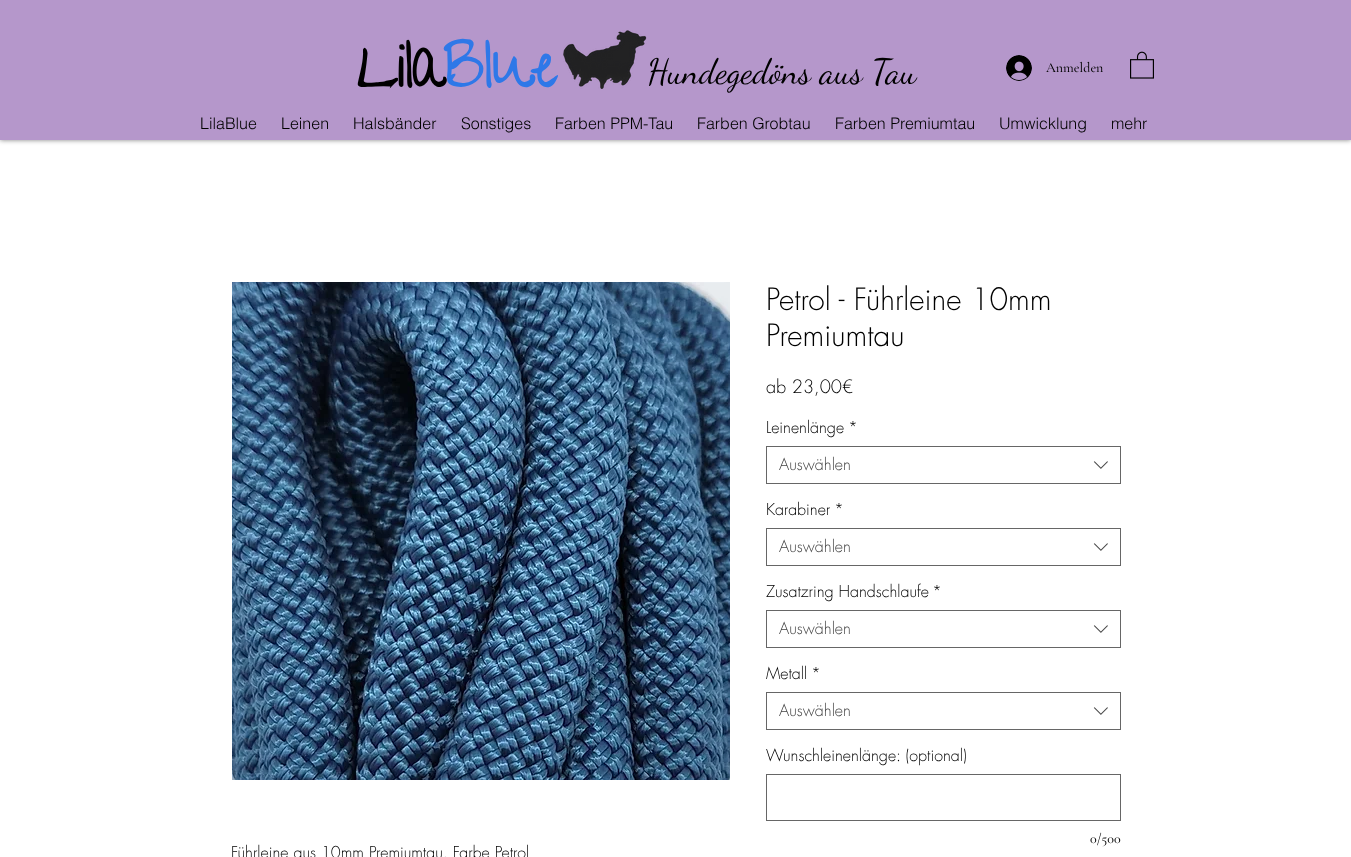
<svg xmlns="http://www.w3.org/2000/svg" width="1351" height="857">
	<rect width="100%" height="100%" fill="#FFFFFF" />
	<rect x="0" y="0" width="1351" height="140" fill="#000000" fill-opacity="0.5" filter="blur(2.5px)" />
	<rect x="0" y="0" width="1351" height="140" fill="#B597CB" />
	<text x="357" y="87" font-family="Give You Glory" font-size="60" font-weight="700" fill="#000000">Lila</text>
	<text x="443" y="87" font-family="Give You Glory" font-size="60" font-weight="700" fill="#2E78E8">Blue</text>
	<image x="563" y="30" width="84" height="59" href="assets/img1.png" />
	<text x="647" y="83" font-family="Dancing Script" font-size="35" fill="#000000">Hundegedöns aus Tau</text>
	<image x="1006" y="55" width="26" height="26" href="assets/img2.png" />
	<text x="1046" y="72" font-family="Cormorant Garamond" font-size="14" font-weight="500" fill="#000000">Anmelden</text>
	<image x="1130" y="51" width="24" height="28" href="assets/img3.png" />
	<g font-family="helvetica" font-size="16" font-weight="300" fill="#000000">
		<text x="200" y="129">LilaBlue</text>
		<text x="281" y="129">Leinen</text>
		<text x="353" y="129">Halsbänder</text>
		<text x="461" y="129">Sonstiges</text>
		<text x="555" y="129">Farben PPM-Tau</text>
		<text x="697" y="129">Farben Grobtau</text>
		<text x="835" y="129">Farben Premiumtau</text>
		<text x="999" y="129">Umwicklung</text>
		<text x="1111" y="129">mehr</text>
	</g>
	<g font-family="futura" font-size="30" font-weight="300" fill="#000000">
		<text x="766" y="310">Petrol - Führleine 10mm</text>
		<text x="766" y="346">Premiumtau</text>
	</g>
	<text x="766" y="393" font-family="futura" font-size="18" font-weight="300" fill="#000000">ab 23,00€</text>
	<g font-family="futura" font-size="16" font-weight="300" fill="#000000">
		<text x="766" y="433">Leinenlänge</text>
		<text x="848" y="433">*</text>
	</g>
	<rect x="766.5" y="446.5" width="354" height="37" fill="none" stroke="#666666" />
	<text x="779" y="470" font-family="futura" font-size="16" font-weight="300" fill="#444444">Auswählen</text>
	<image x="1093" y="461" width="15" height="8" href="assets/img4.png" />
	<g font-family="futura" font-size="16" font-weight="300" fill="#000000">
		<text x="766" y="515">Karabiner</text>
		<text x="834" y="515">*</text>
	</g>
	<rect x="766.5" y="528.5" width="354" height="37" fill="none" stroke="#666666" />
	<text x="779" y="552" font-family="futura" font-size="16" font-weight="300" fill="#444444">Auswählen</text>
	<image x="1093" y="543" width="15" height="8" href="assets/img4.png" />
	<g font-family="futura" font-size="16" font-weight="300" fill="#000000">
		<text x="766" y="597">Zusatzring Handschlaufe</text>
		<text x="932" y="597">*</text>
	</g>
	<rect x="766.5" y="610.5" width="354" height="37" fill="none" stroke="#666666" />
	<text x="779" y="634" font-family="futura" font-size="16" font-weight="300" fill="#444444">Auswählen</text>
	<image x="1093" y="625" width="15" height="8" href="assets/img4.png" />
	<g font-family="futura" font-size="16" font-weight="300" fill="#000000">
		<text x="766" y="679">Metall</text>
		<text x="811" y="679">*</text>
	</g>
	<rect x="766.5" y="692.5" width="354" height="37" fill="none" stroke="#666666" />
	<text x="779" y="716" font-family="futura" font-size="16" font-weight="300" fill="#444444">Auswählen</text>
	<image x="1093" y="707" width="15" height="8" href="assets/img4.png" />
	<text x="766" y="761" font-family="futura" font-size="16" font-weight="300" fill="#000000">Wunschleinenlänge: (optional)</text>
	<rect x="766.5" y="774.5" width="354" height="46" fill="none" stroke="#666666" />
	<text x="1090" y="843" font-family="Cormorant Garamond" font-size="14" font-weight="500" fill="#000000">0/500</text>
	<image x="232" y="282" width="498" height="498" href="assets/img5.png" />
	<text x="231" y="858" font-family="futura" font-size="16" font-weight="300" fill="#000000">Führleine aus 10mm Premiumtau. Farbe Petrol</text>
</svg>
